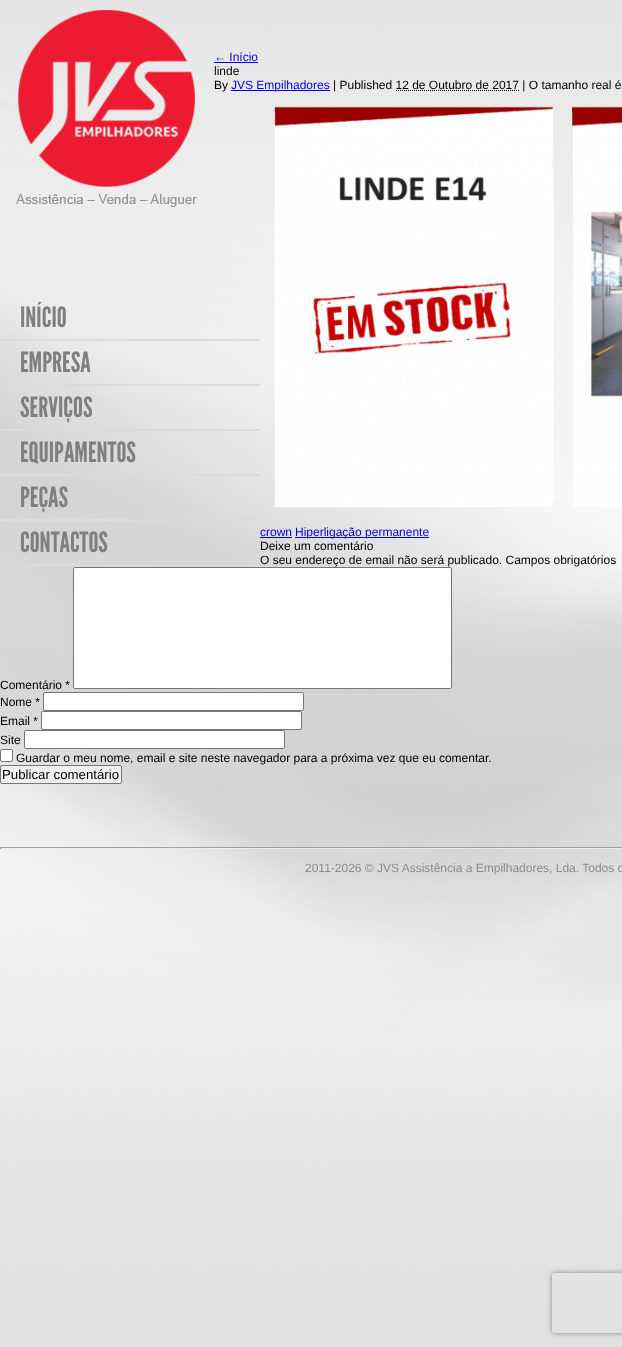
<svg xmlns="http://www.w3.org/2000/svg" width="622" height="1347">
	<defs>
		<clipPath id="clip1"><path d="M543 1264H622V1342H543ZM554 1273H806C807 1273 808 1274 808 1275V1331C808 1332 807 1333 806 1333H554C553 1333 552 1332 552 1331V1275C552 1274 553 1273 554 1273Z" clip-rule="evenodd" /></clipPath>
	</defs>
	<rect width="100%" height="100%" fill="#FFFFFF" />
	<image x="0" y="0" width="622" height="1347" href="assets/img1.png" />
	<image x="0" y="106" width="622" height="1241" href="assets/img3.png" />
	<image x="16" y="10" width="181" height="197" href="assets/img2.png" />
	<text x="214" y="61" font-family="Liberation Sans" font-size="12" fill="#0000EE">← Início</text>
	<rect x="214" y="62" width="44" height="1" fill="#0000EE" />
	<g font-family="Liberation Sans" font-size="12" fill="#000000">
		<text x="214" y="75">linde</text>
		<text x="214" y="89">By</text>
	</g>
	<rect x="231" y="90" width="99" height="1" fill="#0000EE" />
	<text x="231" y="89" font-family="Liberation Sans" font-size="12" fill="#0000EE">JVS Empilhadores</text>
	<text x="333" y="89" font-family="Liberation Sans" font-size="12" fill="#000000">| Published 12 de Outubro de 2017 | O tamanho real é</text>
	<path d="M396 90.5H519.5" fill="none" stroke="#000000" stroke-dasharray="1 1" />
	<rect x="0" y="339" width="260" height="2" fill="#DBDBDB" />
	<text x="20" y="327" font-family="League Gothic" font-size="28" fill="#7F7F7F">INÍCIO</text>
	<rect x="54" y="384" width="206" height="2" fill="#DBDBDB" />
	<text x="20" y="372" font-family="League Gothic" font-size="28" fill="#7F7F7F">EMPRESA</text>
	<rect x="0" y="429" width="260" height="2" fill="#DBDBDB" />
	<text x="20" y="417" font-family="League Gothic" font-size="28" fill="#7F7F7F">SERVIÇOS</text>
	<rect x="0" y="474" width="260" height="2" fill="#DBDBDB" />
	<text x="20" y="462" font-family="League Gothic" font-size="28" fill="#7F7F7F">EQUIPAMENTOS</text>
	<rect x="0" y="519" width="260" height="2" fill="#DBDBDB" />
	<text x="20" y="507" font-family="League Gothic" font-size="28" fill="#7F7F7F">PEÇAS</text>
	<rect x="13" y="564" width="247" height="2" fill="#DBDBDB" />
	<text x="20" y="552" font-family="League Gothic" font-size="28" fill="#7F7F7F">CONTACTOS</text>
	<image x="274" y="106" width="348" height="402" href="assets/img4.png" />
	<text x="260" y="536" font-family="Liberation Sans" font-size="12" fill="#0000EE">crown</text>
	<rect x="260" y="537" width="32" height="1" fill="#0000EE" />
	<rect x="295" y="537" width="134" height="1" fill="#0000EE" />
	<text x="295" y="536" font-family="Liberation Sans" font-size="12" fill="#0000EE">Hiperligação permanente</text>
	<g font-family="Liberation Sans" font-size="12" fill="#000000">
		<text x="260" y="550">Deixe um comentário</text>
		<text x="260" y="564">O seu endereço de email não será publicado. Campos obrigatórios</text>
		<text x="0" y="689">Comentário *</text>
	</g>
	<rect x="73.5" y="567.5" width="378" height="121" rx="1.5" fill="#FFFFFF" stroke="#767676" />
	<text x="0" y="706" font-family="Liberation Sans" font-size="12" fill="#000000">Nome *</text>
	<rect x="43.5" y="692.5" width="260" height="18" rx="1.5" fill="#FFFFFF" stroke="#767676" />
	<text x="0" y="725" font-family="Liberation Sans" font-size="12" fill="#000000">Email *</text>
	<rect x="41.5" y="711.5" width="260" height="18" rx="1.5" fill="#FFFFFF" stroke="#767676" />
	<text x="0" y="744" font-family="Liberation Sans" font-size="12" fill="#000000">Site</text>
	<rect x="24.5" y="730.5" width="260" height="18" rx="1.5" fill="#FFFFFF" stroke="#767676" />
	<rect x="0.5" y="749.5" width="12" height="12" rx="1.5" fill="#FFFFFF" stroke="#767676" />
	<text x="16" y="762" font-family="Liberation Sans" font-size="12" fill="#000000">Guardar o meu nome, email e site neste navegador para a próxima vez que eu comentar.</text>
	<rect x="0.5" y="765.5" width="121" height="18" rx="1.5" fill="#EFEFEF" stroke="#767676" />
	<text x="2" y="779" font-family="Liberation Sans" font-size="13.25" fill="#000000">Publicar comentário</text>
	<rect x="0" y="847" width="622" height="1" fill="#9F9F9F" />
	<rect x="0" y="848" width="622" height="1" fill="#EEEEEE" />
	<rect x="0" y="847" width="1" height="2" fill="#9F9F9F" />
	<text x="305" y="872" font-family="Liberation Sans" font-size="12" fill="#8B8B8B">2011-2026 © JVS Assistência a Empilhadores, Lda. Todos o</text>
	<g clip-path="url(#clip1)">
		<rect x="552" y="1273" width="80" height="60" rx="2" fill="#808080" filter="blur(2.5px)" />
	</g>
</svg>
